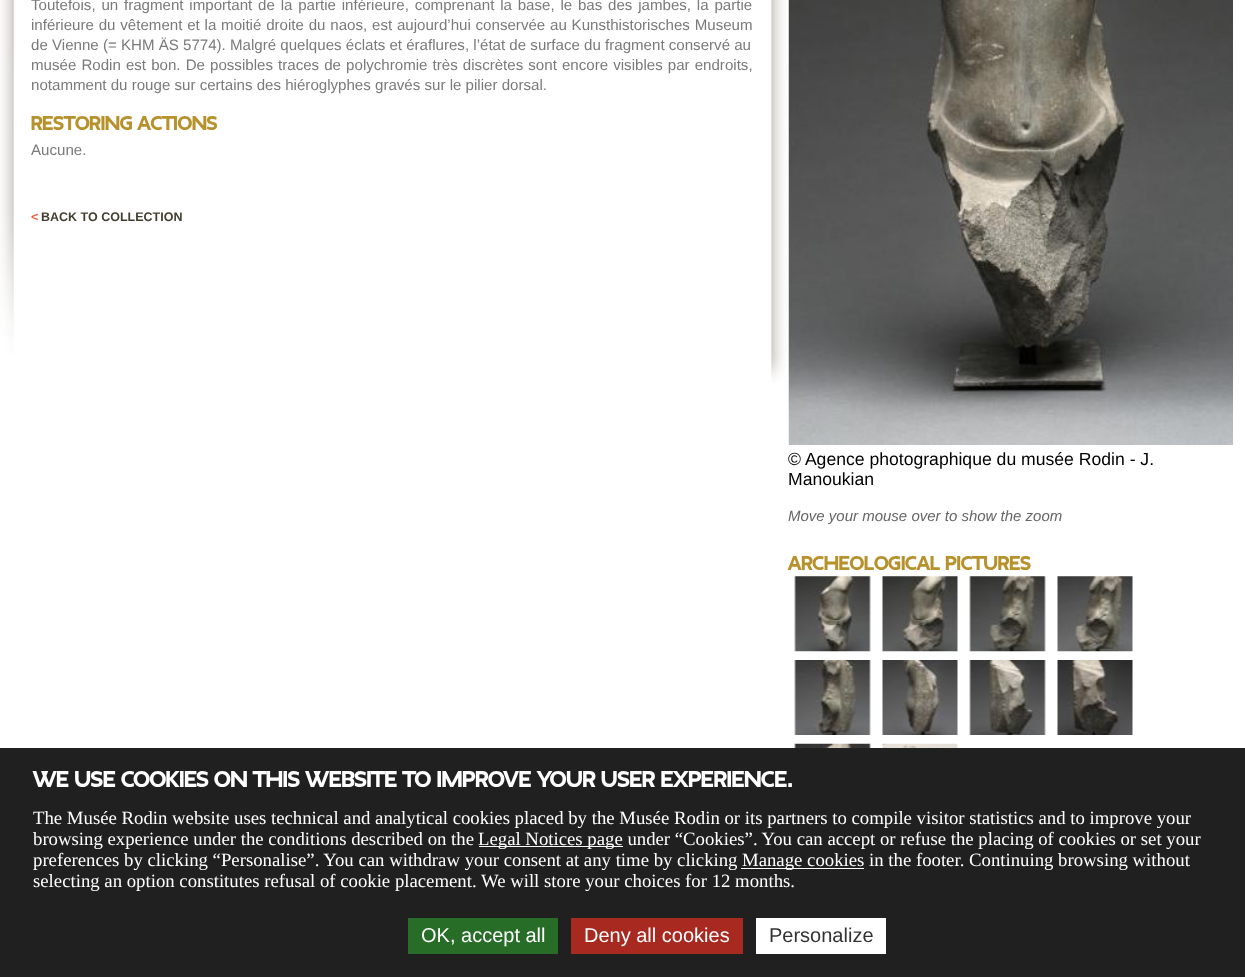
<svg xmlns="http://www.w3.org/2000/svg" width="1245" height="977">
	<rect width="100%" height="100%" fill="#FFFFFF" />
	<image x="0" y="0" width="787" height="383" href="assets/img1.png" />
	<g font-family="Liberation Sans" font-size="15.1" fill="#7A7A7A">
		<text x="31" y="10" word-spacing="1.6">Toutefois, un fragment important de la partie inférieure, comprenant la base, le bas des jambes, la partie</text>
		<text x="31" y="30" word-spacing="0.6">inférieure du vêtement et la moitié droite du naos, est aujourd’hui conservée au Kunsthistorisches Museum</text>
		<text x="31" y="50">de Vienne (= KHM ÄS 5774). Malgré quelques éclats et éraflures, l’état de surface du fragment conservé au</text>
		<text x="31" y="70" word-spacing="0.9">musée Rodin est bon. De possibles traces de polychromie très discrètes sont encore visibles par endroits,</text>
		<text x="31" y="90">notamment du rouge sur certains des hiéroglyphes gravés sur le pilier dorsal.</text>
	</g>
	<text x="31" y="130" font-family="'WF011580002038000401'" font-size="17.5" font-weight="700" fill="#B7912C">Restoring actions</text>
	<text x="31" y="155" font-family="Liberation Sans" font-size="15.1" fill="#7A7A7A">Aucune.</text>
	<text x="31" y="221" font-family="Liberation Sans" font-size="12.5" font-weight="700" fill="#F25C39">&lt;</text>
	<text x="41" y="221" font-family="Liberation Sans" font-size="12.5" font-weight="700" fill="#413E30">BACK TO COLLECTION</text>
	<image x="788" y="0" width="445" height="445" href="assets/img2.png" />
	<g font-family="Liberation Sans" font-size="17.6" fill="#000000">
		<text x="788" y="465">© Agence photographique du musée Rodin - J.</text>
		<text x="788" y="485">Manoukian</text>
	</g>
	<text x="788" y="521" font-family="Liberation Sans" font-size="15" font-style="italic" fill="#666666">Move your mouse over to show the zoom</text>
	<text x="788" y="570" font-family="'WF011580002038000401'" font-size="17.5" font-weight="700" fill="#B7912C">Archeological pictures</text>
	<image x="794" y="576" width="77" height="76" href="assets/img3.png" />
	<image x="882" y="576" width="76" height="76" href="assets/img4.png" />
	<image x="969" y="576" width="77" height="76" href="assets/img5.png" />
	<image x="1057" y="576" width="76" height="76" href="assets/img6.png" />
	<image x="794" y="660" width="77" height="75" href="assets/img7.png" />
	<image x="882" y="660" width="76" height="75" href="assets/img8.png" />
	<image x="969" y="660" width="77" height="75" href="assets/img9.png" />
	<image x="1057" y="660" width="76" height="75" href="assets/img10.png" />
	<image x="794" y="743" width="77" height="5" href="assets/img11.png" />
	<image x="882" y="743" width="76" height="5" href="assets/img12.png" />
	<rect x="0" y="748" width="1245" height="229" fill="#202020" />
	<text x="33" y="787" font-family="'WF011580002038000401'" font-size="20" font-weight="700" fill="#FFFFFF">WE USE COOKIES ON THIS WEBSITE TO IMPROVE YOUR USER EXPERIENCE.</text>
	<g font-family="Liberation Serif" font-size="18.75" fill="#FFFFFF">
		<text x="33" y="824">The Musée Rodin website uses technical and analytical cookies placed by the Musée Rodin or its partners to compile visitor statistics and to improve your</text>
		<text x="33" y="845">browsing experience under the conditions described on the</text>
	</g>
	<rect x="479" y="846" width="144" height="1" fill="#FFFFFF" />
	<g font-family="Liberation Serif" font-size="18.75" fill="#FFFFFF">
		<text x="478" y="845">Legal Notices page under “Cookies”. You can accept or refuse the placing of cookies or set your</text>
		<text x="33" y="866">preferences by clicking “Personalise”. You can withdraw your consent at any time by clicking</text>
	</g>
	<rect x="741" y="868" width="123" height="1" fill="#FFFFFF" />
	<g font-family="Liberation Serif" font-size="18.75" fill="#FFFFFF">
		<text x="742" y="866">Manage cookies in the footer. Continuing browsing without</text>
		<text x="33" y="887">selecting an option constitutes refusal of cookie placement. We will store your choices for 12 months.</text>
	</g>
	<rect x="408" y="918" width="150" height="36" fill="#276D27" />
	<text x="421" y="942" font-family="Liberation Sans" font-size="20" fill="#FFFFFF">OK, accept all</text>
	<rect x="571" y="918" width="172" height="36" fill="#A72920" />
	<text x="584" y="942" font-family="Liberation Sans" font-size="20" fill="#FFFFFF">Deny all cookies</text>
	<rect x="756" y="918" width="130" height="36" fill="#FFFFFF" />
	<text x="769" y="942" font-family="Liberation Sans" font-size="20" fill="#333333">Personalize</text>
</svg>
